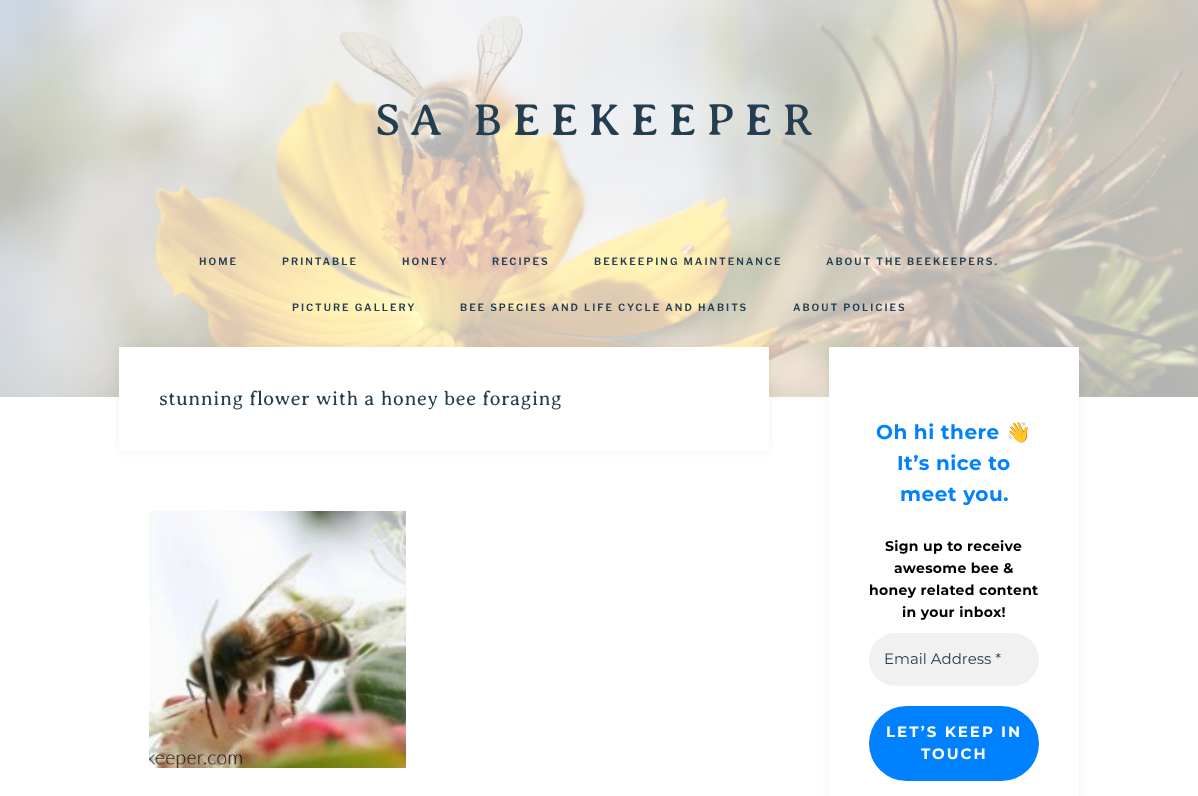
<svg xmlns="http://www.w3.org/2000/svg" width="1198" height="796">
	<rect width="100%" height="100%" fill="#FFFFFF" />
	<image x="0" y="0" width="1198" height="397" href="assets/img1.png" />
	<text x="375" y="135" font-family="Averia Serif Libre" font-size="45" letter-spacing="10" fill="#243E50">SA BEEKEEPER</text>
	<g font-family="Libre Franklin" font-size="10" font-weight="600" letter-spacing="2" fill="#243E50">
		<text x="199" y="265">HOME</text>
		<text x="282" y="265">PRINTABLE</text>
		<text x="402" y="265">HONEY</text>
		<text x="492" y="265">RECIPES</text>
		<text x="594" y="265">BEEKEEPING MAINTENANCE</text>
		<text x="826" y="265">ABOUT THE BEEKEEPERS.</text>
		<text x="292" y="311">PICTURE GALLERY</text>
		<text x="460" y="311">BEE SPECIES AND LIFE CYCLE AND HABITS</text>
		<text x="793" y="311">ABOUT POLICIES</text>
	</g>
	<rect x="119" y="347" width="650" height="104" fill="#000000" fill-opacity="0.05" filter="blur(5px)" />
	<rect x="119" y="347" width="650" height="104" fill="#FFFFFF" />
	<text x="159" y="405" font-family="Averia Serif Libre" font-size="20" font-weight="300" letter-spacing="0.5" fill="#243E50">stunning flower with a honey bee foraging</text>
	<image x="149" y="511" width="257" height="257" href="assets/img2.png" />
	<rect x="829" y="347" width="250" height="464" fill="#000000" fill-opacity="0.05" filter="blur(5px)" />
	<rect x="829" y="347" width="250" height="449" fill="#FFFFFF" />
	<text x="876" y="439" font-family="Montserrat" font-size="20" font-weight="700" letter-spacing="0.5" fill="#0081FF">Oh hi there</text>
	<text x="1006" y="439" font-family="Noto Color Emoji" font-size="20" font-weight="700" letter-spacing="0.5" fill="#0081FF">👋</text>
	<g font-family="Montserrat" font-size="20" font-weight="700" letter-spacing="0.5" fill="#0081FF">
		<text x="897" y="470">It’s nice to</text>
		<text x="900" y="501">meet you.</text>
	</g>
	<g font-family="Montserrat" font-size="14" font-weight="700" letter-spacing="0.3" fill="#000000">
		<text x="885" y="551">Sign up to receive</text>
		<text x="894" y="573">awesome bee &amp;</text>
		<text x="869" y="595">honey related content</text>
		<text x="902" y="617">in your inbox!</text>
	</g>
	<rect x="869" y="633" width="170" height="53" rx="26.5" fill="#F1F1F1" />
	<text x="884" y="664" font-family="Montserrat" font-size="15" fill="#243E50">Email Address *</text>
	<rect x="869" y="706" width="170" height="75" rx="37.5" fill="#0081FF" />
	<g font-family="Montserrat" font-size="15" font-weight="700" letter-spacing="2" fill="#FFFFFF">
		<text x="886" y="737">LET’S KEEP IN</text>
		<text x="921" y="759">TOUCH</text>
	</g>
</svg>
